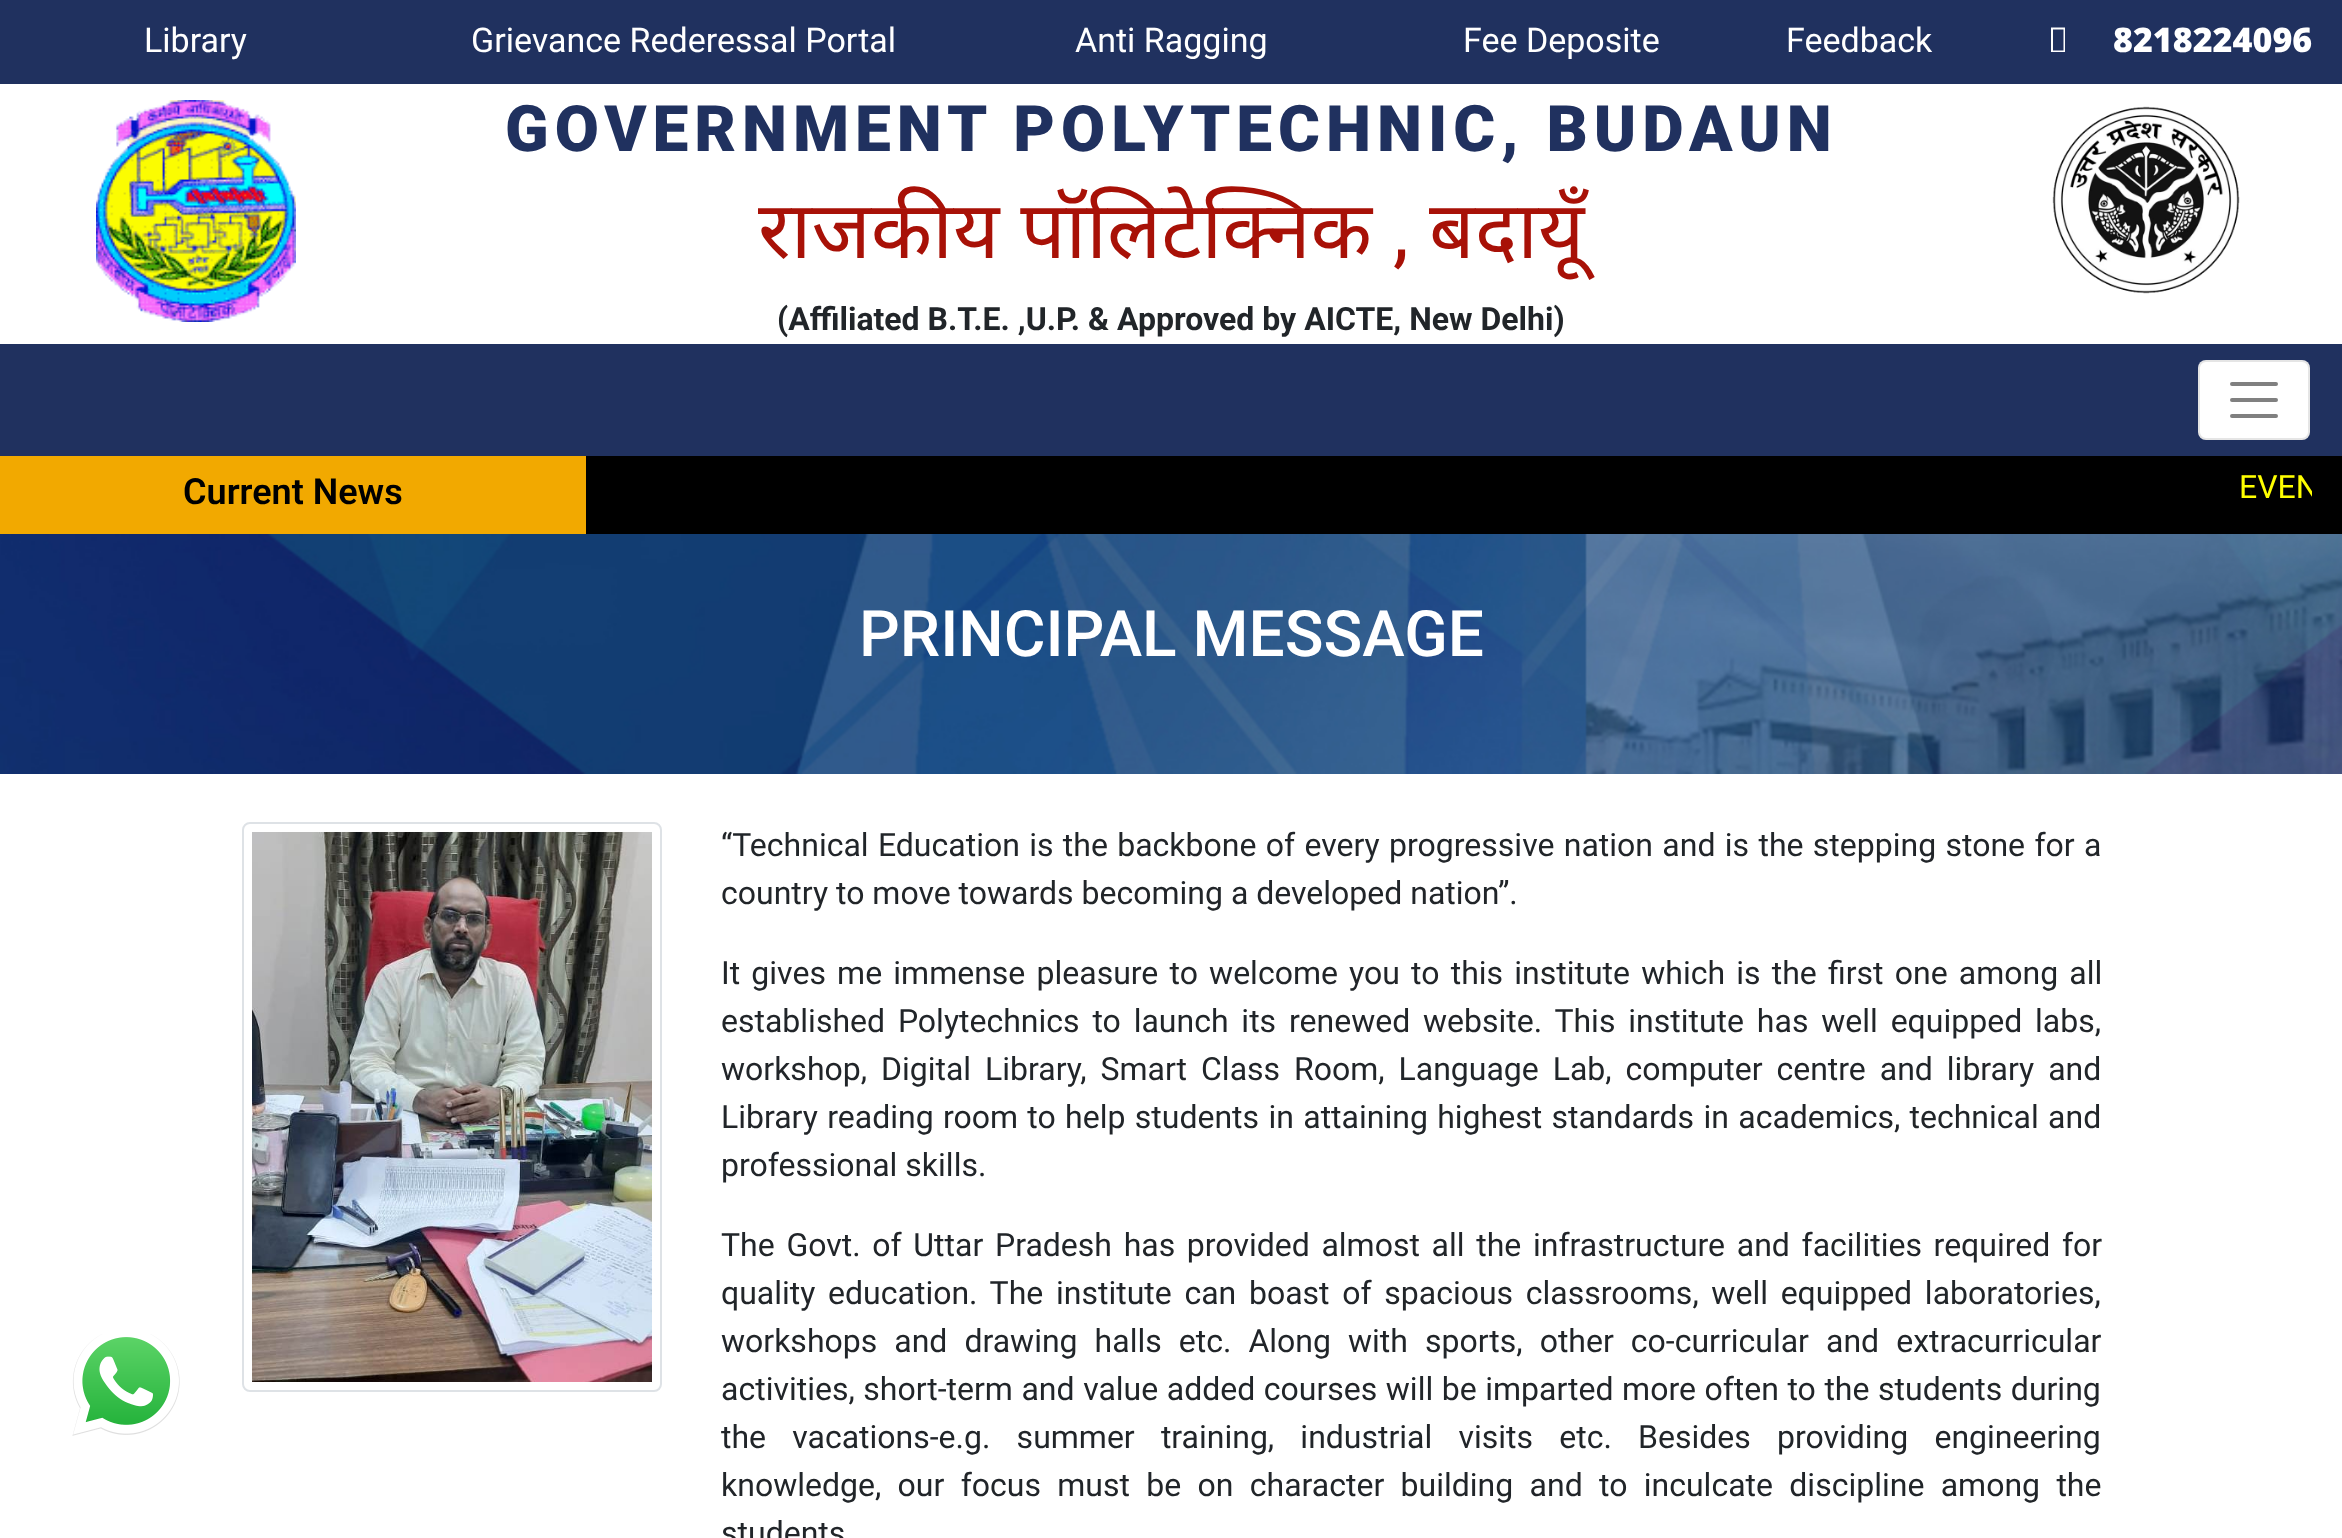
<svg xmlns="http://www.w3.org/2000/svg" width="2342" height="1538">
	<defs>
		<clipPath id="clip1"><rect x="616" y="464" width="1696" height="48" /></clipPath>
	</defs>
	<rect width="100%" height="100%" fill="#FFFFFF" />
	<rect x="0" y="0" width="2342" height="84" fill="#20315F" />
	<g font-family="Roboto" font-size="34" fill="#FFFFFF">
		<text x="144" y="52">Library</text>
		<text x="471" y="52">Grievance Rederessal Portal</text>
		<text x="1075" y="52">Anti Ragging</text>
		<text x="1463" y="52">Fee Deposite</text>
		<text x="1786" y="52">Feedback</text>
	</g>
	<path d="M2051 52V27.5H2065V52ZM2053 50.5H2063.5V29.5H2053Z" fill="#FFFFFF" />
	<text x="2113" y="52" font-family="Noto Sans" font-size="34" font-weight="900" fill="#FFFFFF">8218224096</text>
	<image x="96" y="100" width="200" height="222" href="assets/img1.png" />
	<text x="505" y="151" font-family="Roboto" font-size="64" font-weight="900" letter-spacing="6" fill="#20315F">GOVERNMENT POLYTECHNIC, BUDAUN</text>
	<text x="758" y="258" font-family="Noto Sans" font-size="80" fill="#A81107">राजकीय पॉलिटेक्निक</text>
	<text x="1393" y="258" font-family="Roboto" font-size="80" fill="#A81107">,</text>
	<text x="1429" y="258" font-family="Noto Sans" font-size="80" fill="#A81107">बदायूँ</text>
	<text x="777" y="330" font-family="Roboto" font-size="32" font-weight="700" fill="#212529">(Affiliated B.T.E. ,U.P. &amp; Approved by AICTE, New Delhi)</text>
	<image x="2052" y="106" width="188" height="188" href="assets/img2.png" />
	<rect x="0" y="344" width="2342" height="112" fill="#20315F" />
	<rect x="2198" y="360" width="112" height="80" rx="8" fill="#FFFFFF" />
	<rect x="2199" y="361" width="110" height="78" rx="7" fill="none" stroke="#000000" stroke-opacity="0.1" stroke-width="2" />
	<path d="M2232 384H2276M2232 400H2276M2232 416H2276" fill="none" stroke="#808080" stroke-width="4" stroke-linecap="round" />
	<rect x="0" y="456" width="586" height="78" fill="#F2A900" />
	<text x="183" y="504" font-family="Roboto" font-size="36" font-weight="600" fill="#000000">Current News</text>
	<rect x="586" y="456" width="1756" height="78" fill="#000000" />
	<g clip-path="url(#clip1)">
		<text x="2239" y="498" font-family="Roboto" font-size="32" fill="#FFFF00">EVEN</text>
	</g>
	<image x="0" y="534" width="2342" height="240" href="assets/img3.png" />
	<text x="859" y="656" font-family="Roboto" font-size="64" font-weight="500" fill="#FFFFFF">PRINCIPAL MESSAGE</text>
	<image x="72" y="1334" width="108" height="102" href="assets/img4.png" />
	<rect x="243" y="823" width="418" height="568" rx="7" fill="none" stroke="#DEE2E6" stroke-width="2" />
	<image x="252" y="832" width="400" height="550" href="assets/img5.png" />
	<g font-family="Roboto" font-size="32" fill="#212529">
		<text x="721" y="856" word-spacing="1.4">“Technical Education is the backbone of every progressive nation and is the stepping stone for a</text>
		<text x="721" y="904">country to move towards becoming a developed nation”.</text>
		<text x="721" y="984" word-spacing="3.25">It gives me immense pleasure to welcome you to this institute which is the first one among all</text>
		<text x="721" y="1032" word-spacing="4.9">established Polytechnics to launch its renewed website. This institute has well equipped labs,</text>
		<text x="721" y="1080" word-spacing="6">workshop, Digital Library, Smart Class Room, Language Lab, computer centre and library and</text>
		<text x="721" y="1128" word-spacing="1.4">Library reading room to help students in attaining highest standards in academics, technical and</text>
		<text x="721" y="1176">professional skills.</text>
		<text x="721" y="1256" word-spacing="3.75">The Govt. of Uttar Pradesh has provided almost all the infrastructure and facilities required for</text>
		<text x="721" y="1304" word-spacing="4.75">quality education. The institute can boast of spacious classrooms, well equipped laboratories,</text>
		<text x="721" y="1352" word-spacing="9.1">workshops and drawing halls etc. Along with sports, other co-curricular and extracurricular</text>
		<text x="721" y="1400" word-spacing="0.6">activities, short-term and value added courses will be imparted more often to the students during</text>
		<text x="721" y="1448" word-spacing="18.25">the vacations-e.g. summer training, industrial visits etc. Besides providing engineering</text>
		<text x="721" y="1496" word-spacing="8.4">knowledge, our focus must be on character building and to inculcate discipline among the</text>
		<text x="721" y="1544">students</text>
	</g>
</svg>
